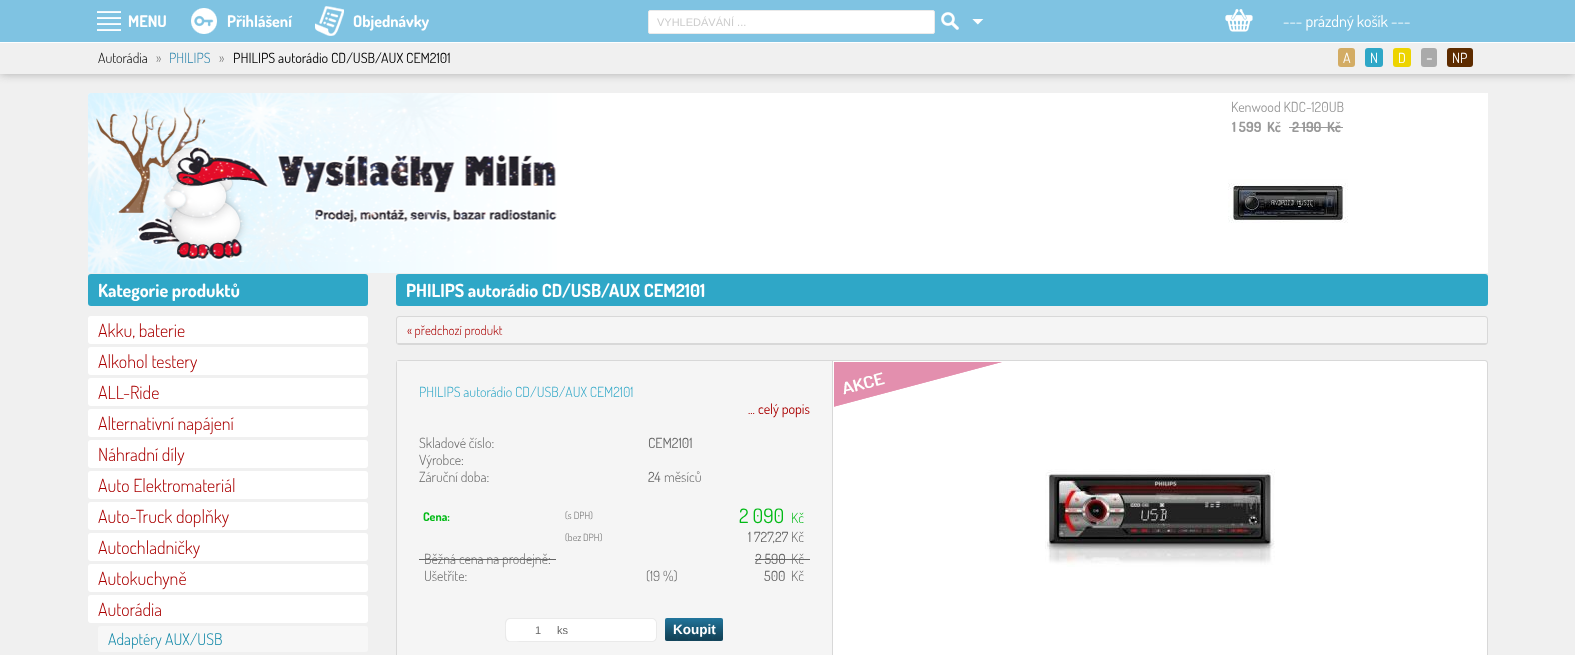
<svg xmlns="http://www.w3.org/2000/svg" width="1575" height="655">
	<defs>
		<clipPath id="clip1"><rect x="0" y="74" width="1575" height="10" /></clipPath>
	</defs>
	<rect width="100%" height="100%" fill="#F0F0F0" />
	<g clip-path="url(#clip1)">
		<rect x="0" y="42" width="1575" height="32" fill="#AAAAAA" filter="blur(5px)" />
	</g>
	<rect x="0" y="0" width="1575" height="42" fill="#7FC3E2" />
	<image x="97" y="11" width="24" height="20" href="assets/img1.png" />
	<text x="128" y="27" font-family="Dosis" font-size="16" font-weight="700" fill="#FFFFFF">MENU</text>
	<image x="191" y="8" width="26" height="26" href="assets/img2.png" />
	<text x="227" y="27" font-family="Dosis" font-size="16" font-weight="700" fill="#FFFFFF">Přihlášení</text>
	<image x="315" y="6" width="29" height="30" href="assets/img3.png" />
	<text x="353" y="27" font-family="Dosis" font-size="16" font-weight="700" fill="#FFFFFF">Objednávky</text>
	<rect x="648.5" y="10.5" width="286" height="23" rx="1.5" fill="#FFFFFF" stroke="#EAEAEA" />
	<text x="657" y="26" font-family="Liberation Sans" font-size="11" fill="#CCCCCC">VYHLEDÁVÁNÍ ...</text>
	<image x="941" y="12" width="18" height="18" href="assets/img4.png" />
	<image x="972" y="19" width="12" height="6" href="assets/img5.png" />
	<image x="1225" y="9" width="28" height="23" href="assets/img6.png" />
	<text x="1283" y="27" font-family="Dosis" font-size="16" fill="#FFFFFF">--- prázdný košík ---</text>
	<rect x="0" y="42" width="1575" height="1" fill="#FFFFFF" />
	<text x="98" y="63" font-family="Dosis" font-size="14" font-weight="300" fill="#000000">Autorádia</text>
	<text x="156" y="63" font-family="Dosis" font-size="14" font-weight="300" fill="#777777">»</text>
	<text x="169" y="63" font-family="Dosis" font-size="14" font-weight="300" fill="#2580AA">PHILIPS</text>
	<text x="219" y="63" font-family="Dosis" font-size="14" font-weight="300" fill="#777777">»</text>
	<text x="233" y="63" font-family="Dosis" font-size="14" fill="#000000">PHILIPS autorádio CD/USB/AUX CEM2101</text>
	<rect x="1338" y="48" width="17" height="19" rx="3" fill="#D3AC64" />
	<text x="1343" y="63" font-family="Dosis" font-size="14" fill="#FFFFFF">A</text>
	<rect x="1365" y="48" width="18" height="19" rx="3" fill="#2FA7C7" />
	<text x="1370" y="63" font-family="Dosis" font-size="14" fill="#FFFFFF">N</text>
	<rect x="1393" y="48" width="18" height="19" rx="3" fill="#EDD400" />
	<text x="1398" y="63" font-family="Dosis" font-size="14" fill="#FFFFFF">D</text>
	<rect x="1421" y="48" width="16" height="19" rx="3" fill="#AAAAAA" />
	<text x="1426" y="63" font-family="Dosis" font-size="14" fill="#FFFFFF">−</text>
	<rect x="1447" y="48" width="26" height="19" rx="3" fill="#5E2C00" />
	<text x="1452" y="63" font-family="Dosis" font-size="14" fill="#FFFFFF">NP</text>
	<rect x="88" y="93" width="1400" height="180" rx="3" fill="#FFFFFF" />
	<image x="88" y="93" width="469" height="180" href="assets/img7.png" />
	<rect x="1486" y="93" width="2" height="180" fill="#FFFFFF" />
	<text x="1231" y="112" font-family="Dosis" font-size="14" fill="#999999">Kenwood KDC-120UB</text>
	<g font-family="Dosis" font-size="14" font-weight="700" fill="#999999">
		<text x="1232" y="132" xml:space="preserve">1 599  Kč</text>
		<text x="1292" y="132" xml:space="preserve">2 190  Kč</text>
	</g>
	<rect x="1289" y="127" width="54" height="1" fill="#999999" />
	<image x="1228" y="179" width="120" height="44" href="assets/img8.png" />
	<rect x="88" y="274" width="280" height="32" rx="3" fill="#2FA7C7" />
	<text x="98" y="297" font-family="Dosis" font-size="18" font-weight="700" fill="#FFFFFF">Kategorie produktů</text>
	<rect x="88" y="316" width="280" height="28" rx="3" fill="#FFFFFF" />
	<text x="98" y="337" font-family="Dosis" font-size="18" font-weight="300" fill="#AA0000">Akku, baterie</text>
	<rect x="88" y="347" width="280" height="28" rx="3" fill="#FFFFFF" />
	<text x="98" y="368" font-family="Dosis" font-size="18" font-weight="300" fill="#AA0000">Alkohol testery</text>
	<rect x="88" y="378" width="280" height="28" rx="3" fill="#FFFFFF" />
	<text x="98" y="399" font-family="Dosis" font-size="18" font-weight="300" fill="#AA0000">ALL-Ride</text>
	<rect x="88" y="409" width="280" height="28" rx="3" fill="#FFFFFF" />
	<text x="98" y="430" font-family="Dosis" font-size="18" font-weight="300" fill="#AA0000">Alternativní napájení</text>
	<rect x="88" y="440" width="280" height="28" rx="3" fill="#FFFFFF" />
	<text x="98" y="461" font-family="Dosis" font-size="18" font-weight="300" fill="#AA0000">Náhradní díly</text>
	<rect x="88" y="471" width="280" height="28" rx="3" fill="#FFFFFF" />
	<text x="98" y="492" font-family="Dosis" font-size="18" font-weight="300" fill="#AA0000">Auto Elektromateriál</text>
	<rect x="88" y="502" width="280" height="28" rx="3" fill="#FFFFFF" />
	<text x="98" y="523" font-family="Dosis" font-size="18" font-weight="300" fill="#AA0000">Auto-Truck doplňky</text>
	<rect x="88" y="533" width="280" height="28" rx="3" fill="#FFFFFF" />
	<text x="98" y="554" font-family="Dosis" font-size="18" font-weight="300" fill="#AA0000">Autochladničky</text>
	<rect x="88" y="564" width="280" height="28" rx="3" fill="#FFFFFF" />
	<text x="98" y="585" font-family="Dosis" font-size="18" font-weight="300" fill="#AA0000">Autokuchyně</text>
	<rect x="88" y="595" width="280" height="28" rx="3" fill="#FFFFFF" />
	<text x="98" y="616" font-family="Dosis" font-size="18" font-weight="300" fill="#AA0000">Autorádia</text>
	<rect x="98" y="626" width="270" height="26" rx="3" fill="#F7F7F7" />
	<text x="108" y="645" font-family="Dosis" font-size="16" font-weight="300" fill="#0F87A7">Adaptéry AUX/USB</text>
	<rect x="396" y="274" width="1092" height="32" rx="3" fill="#2FA7C7" />
	<text x="406" y="297" font-family="Dosis" font-size="18" font-weight="700" fill="#FFFFFF">PHILIPS autorádio CD/USB/AUX CEM2101</text>
	<path d="M399 317H1485C1486 317 1487 318 1487 319V342C1487 343 1486 343 1485 343H399C398 343 397 343 397 342V319C397 318 398 317 399 317Z" fill="#F5F5F5" />
	<rect x="396.5" y="316.5" width="1091" height="28" rx="2.5" fill="none" stroke="#D8D8D8" />
	<rect x="398" y="343" width="1089" height="1" fill="#D8D8D8" />
	<text x="407" y="335" font-family="Dosis" font-size="13" font-weight="300" fill="#AA0000">« předchozí produkt</text>
	<path d="M399 361H1485C1486 361 1487 362 1487 363V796C1487 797 1486 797 1485 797H399C398 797 397 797 397 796V363C397 362 398 361 399 361Z" fill="#FFFFFF" />
	<rect x="396.5" y="360.5" width="1091" height="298" rx="2.5" fill="none" stroke="#D8D8D8" />
	<rect x="397" y="361" width="435" height="294" fill="#F5F5F5" />
	<rect x="832" y="361" width="1" height="294" fill="#D8D8D8" />
	<text x="419" y="397" font-family="Dosis" font-size="14" font-weight="300" fill="#2FA7C7">PHILIPS autorádio CD/USB/AUX CEM2101</text>
	<text x="748" y="414" font-family="Dosis" font-size="14" font-weight="300" fill="#AA0000">...</text>
	<text x="758" y="414" font-family="Dosis" font-size="14" fill="#AA0000">celý popis</text>
	<text x="419" y="448" font-family="Dosis" font-size="14" font-weight="300" fill="#656565">Skladové číslo:</text>
	<text x="648" y="448" font-family="Dosis" font-size="14" fill="#656565">CEM2101</text>
	<g font-family="Dosis" font-size="14" font-weight="300" fill="#656565">
		<text x="419" y="465">Výrobce:</text>
		<text x="419" y="482">Záruční doba:</text>
	</g>
	<text x="648" y="482" font-family="Dosis" font-size="14" fill="#656565">24</text>
	<text x="664" y="482" font-family="Dosis" font-size="14" font-weight="300" fill="#656565">měsíců</text>
	<text x="423" y="521" font-family="Dosis" font-size="12" font-weight="700" fill="#02BA16">Cena:</text>
	<text x="565" y="519" font-family="Dosis" font-size="10" font-weight="300" fill="#656565">(s DPH)</text>
	<text x="739" y="523" font-family="Dosis" font-size="20" fill="#02BA16">2 090</text>
	<text x="791" y="523" font-family="Dosis" font-size="14" font-weight="300" fill="#02BA16">Kč</text>
	<text x="565" y="541" font-family="Dosis" font-size="10" font-weight="300" fill="#656565">(bez DPH)</text>
	<text x="748" y="542" font-family="Dosis" font-size="14" fill="#656565">1 727,27</text>
	<g font-family="Dosis" font-size="14" font-weight="300" fill="#656565">
		<text x="791" y="542">Kč</text>
		<text x="424" y="564">Běžná cena na prodejně:</text>
	</g>
	<rect x="419" y="559" width="137" height="1" fill="#656565" />
	<text x="755" y="564" font-family="Dosis" font-size="14" fill="#656565">2 590</text>
	<rect x="755" y="559" width="33" height="1" fill="#656565" />
	<text x="791" y="564" font-family="Dosis" font-size="14" font-weight="300" fill="#656565">Kč</text>
	<rect x="788" y="559" width="22" height="1" fill="#656565" />
	<g font-family="Dosis" font-size="14" font-weight="300" fill="#656565">
		<text x="424" y="581">Ušetříte:</text>
		<text x="646" y="581">(19 %)</text>
	</g>
	<text x="764" y="581" font-family="Dosis" font-size="14" fill="#656565">500</text>
	<text x="791" y="581" font-family="Dosis" font-size="14" font-weight="300" fill="#656565">Kč</text>
	<path d="M510 618H549V642H510C507 642 505 640 505 637V623C505 620 507 618 510 618Z" fill="#FFFFFF" />
	<path d="M510 618H549V642H510C507 642 505 640 505 637V623C505 620 507 618 510 618ZM510 619H549V641H523C507 641 506 644 506 630C506 627 505 619 510 619Z" fill="#EAEAEA" fill-rule="evenodd" />
	<text x="535" y="634" font-family="Liberation Sans" font-size="11" fill="#656565">1</text>
	<path d="M549 618H652C655 618 657 620 657 623V637C657 640 655 642 652 642H549Z" fill="#FFFFFF" />
	<path d="M549 618H652C655 618 657 620 657 623V637C657 640 655 642 652 642H549ZM549 619H652C654 619 656 621 656 623V637C656 639 654 641 652 641H549Z" fill="#EAEAEA" fill-rule="evenodd" />
	<text x="557" y="634" font-family="Liberation Sans" font-size="11" fill="#656565">ks</text>
	<rect x="665" y="618" width="58" height="23" rx="2" fill="#2580AA" />
	<image x="665" y="618" width="58" height="23" href="assets/img9.png" />
	<text x="673" y="634" font-family="Liberation Sans" font-size="13.5" font-weight="700" fill="#FFFFFF">Koupit</text>
	<image x="834" y="362" width="168" height="45" href="assets/img10.png" />
	<image x="1045" y="469" width="230" height="98" href="assets/img11.png" />
</svg>
